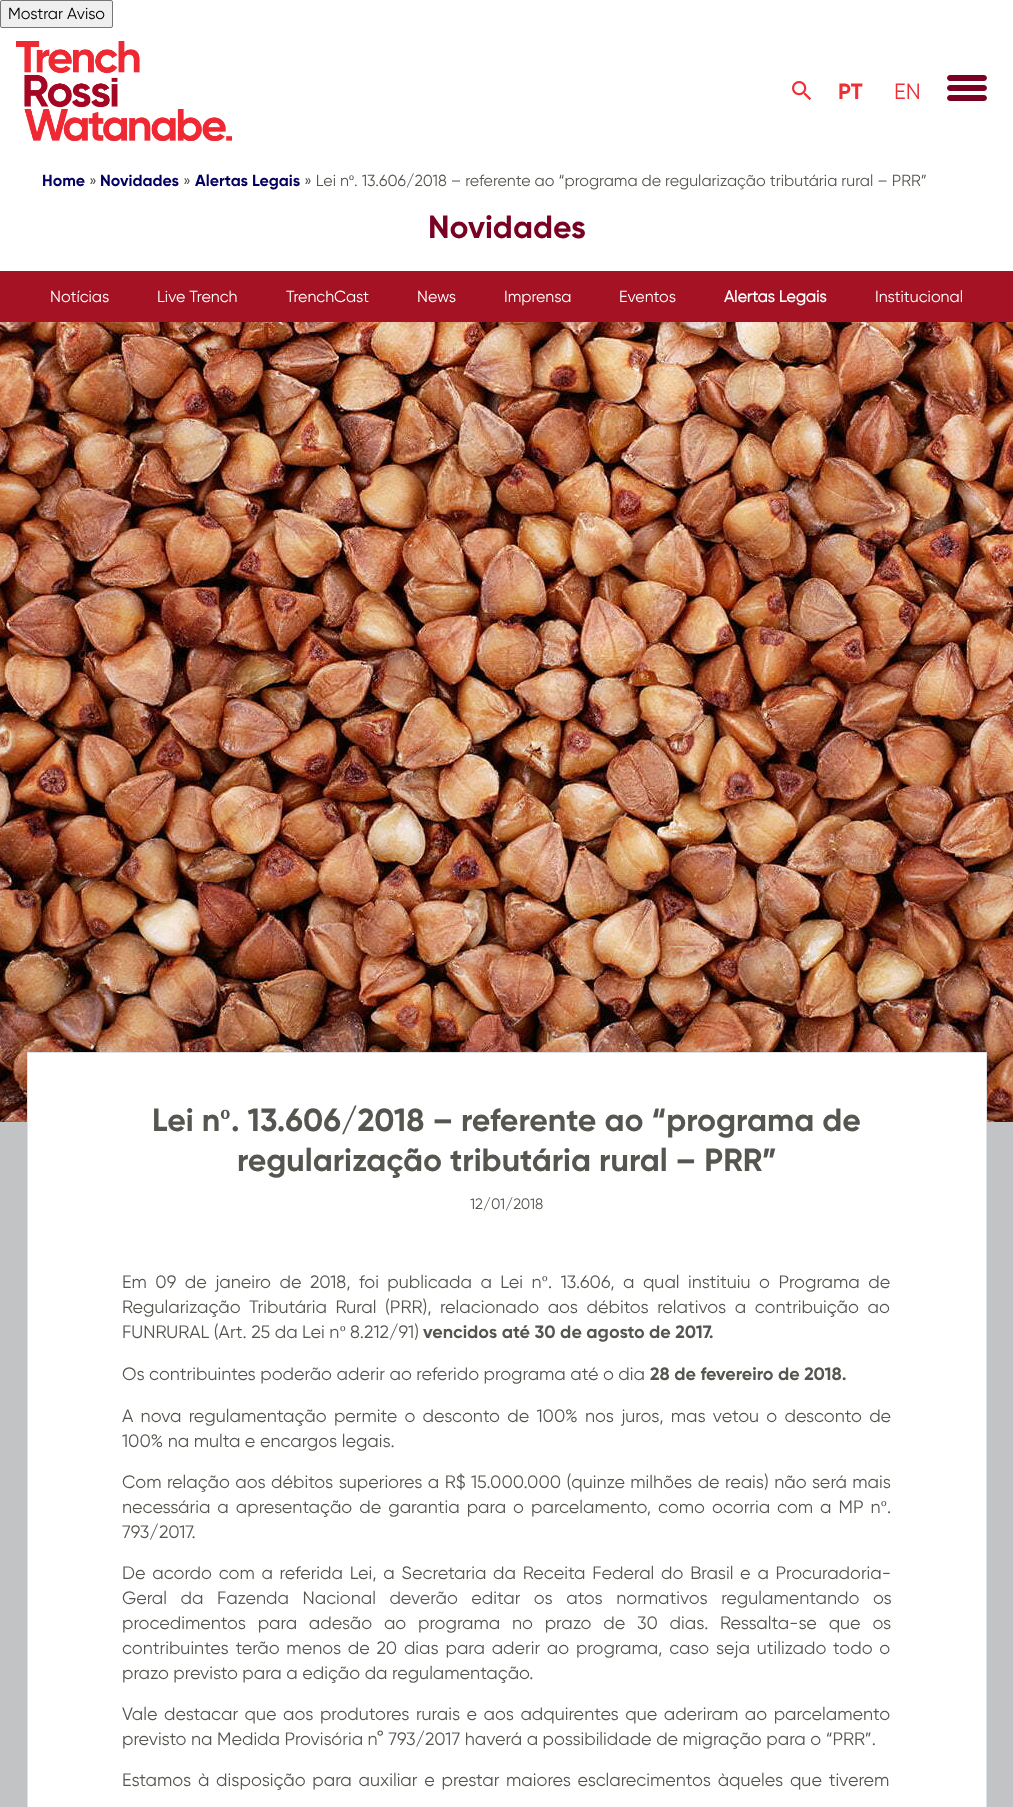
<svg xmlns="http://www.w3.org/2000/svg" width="1013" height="1807">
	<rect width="100%" height="100%" fill="#FFFFFF" />
	<rect x="0.5" y="0.5" width="112" height="27" rx="1.5" fill="#EFEFEF" stroke="#767676" />
	<text x="8" y="19" font-family="Gilroy" font-size="16" fill="#000000">Mostrar Aviso</text>
	<image x="16" y="41" width="216" height="100" href="assets/img1.png" />
	<image x="792" y="81" width="19" height="20" href="assets/img2.png" />
	<text x="838" y="99" font-family="Gilroy" font-size="22" font-weight="700" fill="#EE3035">PT</text>
	<text x="894" y="99" font-family="Gilroy" font-size="22" fill="#EE3035">EN</text>
	<path d="M950 85H967V91H950C948.5 91 947 89.5 947 88C947 86.5 948.5 85 950 85Z" fill="#790123" />
	<path d="M950 75H967V81H950C948.5 81 947 79.5 947 78C947 76.5 948.5 75 950 75Z" fill="#790123" />
	<path d="M950 95H967V101H950C948.5 101 947 99.5 947 98C947 96.5 948.5 95 950 95Z" fill="#790123" />
	<path d="M967 85H984C985.5 85 987 86.5 987 88C987 89.5 985.5 91 984 91H967Z" fill="#790123" />
	<path d="M967 75H984C985.5 75 987 76.5 987 78C987 79.5 985.5 81 984 81H967Z" fill="#790123" />
	<path d="M967 95H984C985.5 95 987 96.5 987 98C987 99.5 985.5 101 984 101H967Z" fill="#790123" />
	<g font-family="Gilroy" font-size="16" font-weight="700" fill="#040061">
		<text x="42" y="186">Home</text>
		<text x="100" y="186">Novidades</text>
		<text x="195" y="186">Alertas Legais</text>
	</g>
	<text x="304" y="186" font-family="Gilroy" font-size="16" fill="#565650">» Lei n</text>
	<text x="349" y="186" font-family="Liberation Serif" font-size="16" fill="#565650">º</text>
	<g font-family="Gilroy" font-size="16" fill="#565650">
		<text x="354" y="186">. 13.606/2018 – referente ao “programa de regularização tributária rural – PRR”</text>
		<text x="89" y="186">»</text>
		<text x="183" y="186">»</text>
	</g>
	<text x="428" y="238" font-family="Gilroy" font-size="32" font-weight="700" fill="#790123">Novidades</text>
	<rect x="0" y="271" width="1013" height="51" fill="#A41223" />
	<g font-family="Gilroy" font-size="16" fill="#FFFFFF">
		<text x="50" y="302">Notícias</text>
		<text x="157" y="302">Live Trench</text>
		<text x="286" y="302">TrenchCast</text>
		<text x="417" y="302">News</text>
		<text x="504" y="302">Imprensa</text>
		<text x="619" y="302">Eventos</text>
	</g>
	<text x="724" y="302" font-family="'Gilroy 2'" font-size="16" font-weight="700" fill="#FFFFFF">Alertas Legais</text>
	<text x="875" y="302" font-family="Gilroy" font-size="16" fill="#FFFFFF">Institucional</text>
	<image x="0" y="322" width="1013" height="800" href="assets/img3.png" />
	<rect x="0" y="1122" width="1013" height="685" fill="#C1C3C4" />
	<rect x="27.5" y="1052.5" width="959" height="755" fill="#FFFFFF" stroke="#DEE2E6" />
	<text x="152" y="1131" font-family="Gilroy" font-size="32" font-weight="700" fill="#565650">Lei n</text>
	<text x="220" y="1131" font-family="Liberation Serif" font-size="32" font-weight="700" fill="#565650">º</text>
	<g font-family="Gilroy" font-size="32" font-weight="700" fill="#565650">
		<text x="231" y="1131">. 13.606/2018 – referente ao “programa de</text>
		<text x="237" y="1171">regularização tributária rural – PRR”</text>
	</g>
	<text x="470" y="1209" font-family="Gilroy" font-size="15" fill="#565650">12/01/2018</text>
	<text x="122" y="1288" word-spacing="4" font-family="Gilroy" font-size="18" fill="#565650">Em 09 de janeiro de 2018, foi publicada a Lei n</text>
	<text x="542" y="1288" font-family="Liberation Serif" font-size="18" fill="#565650">º</text>
	<g font-family="Gilroy" font-size="18" fill="#565650">
		<text x="548" y="1288" word-spacing="4">. 13.606, a qual instituiu o Programa de</text>
		<text x="122" y="1313" word-spacing="4">Regularização Tributária Rural (PRR), relacionado aos débitos relativos a contribuição ao</text>
		<text x="122" y="1338">FUNRURAL (Art. 25 da Lei n</text>
	</g>
	<text x="340" y="1338" font-family="Liberation Serif" font-size="18" fill="#565650">º</text>
	<text x="350" y="1338" font-family="Gilroy" font-size="18" fill="#565650">8.212/91)</text>
	<text x="423" y="1338" font-family="Gilroy" font-size="18" font-weight="700" fill="#565650">vencidos até 30 de agosto de 2017.</text>
	<text x="122" y="1380" font-family="Gilroy" font-size="18" fill="#565650">Os contribuintes poderão aderir ao referido programa até o dia</text>
	<text x="650" y="1380" font-family="Gilroy" font-size="18" font-weight="700" fill="#565650">28 de fevereiro de 2018.</text>
	<g font-family="Gilroy" font-size="18" fill="#565650">
		<text x="122" y="1422" word-spacing="2.75">A nova regulamentação permite o desconto de 100% nos juros, mas vetou o desconto de</text>
		<text x="122" y="1447">100% na multa e encargos legais.</text>
		<text x="122" y="1488" word-spacing="0.9">Com relação aos débitos superiores a R$ 15.000.000 (quinze milhões de reais) não será mais</text>
		<text x="122" y="1513" word-spacing="2.5">necessária a apresentação de garantia para o parcelamento, como ocorria com a MP n</text>
	</g>
	<text x="881" y="1513" font-family="Liberation Serif" font-size="18" fill="#565650">º</text>
	<g font-family="Gilroy" font-size="18" fill="#565650">
		<text x="887" y="1513">.</text>
		<text x="122" y="1538">793/2017.</text>
		<text x="122" y="1579" word-spacing="2.25">De acordo com a referida Lei, a Secretaria da Receita Federal do Brasil e a Procuradoria-</text>
		<text x="122" y="1604" word-spacing="9">Geral da Fazenda Nacional deverão editar os atos normativos regulamentando os</text>
		<text x="122" y="1629" word-spacing="7.25">procedimentos para adesão ao programa no prazo de 30 dias. Ressalta-se que os</text>
		<text x="122" y="1654" word-spacing="2.25">contribuintes terão menos de 20 dias para aderir ao programa, caso seja utilizado todo o</text>
		<text x="122" y="1679">prazo previsto para a edição da regulamentação.</text>
		<text x="122" y="1720" word-spacing="2">Vale destacar que aos produtores rurais e aos adquirentes que aderiram ao parcelamento</text>
		<text x="122" y="1745">previsto na Medida Provisória n° 793/2017 haverá a possibilidade de migração para o “PRR”.</text>
		<text x="122" y="1786" word-spacing="2.25">Estamos à disposição para auxiliar e prestar maiores esclarecimentos àqueles que tiverem</text>
	</g>
</svg>
